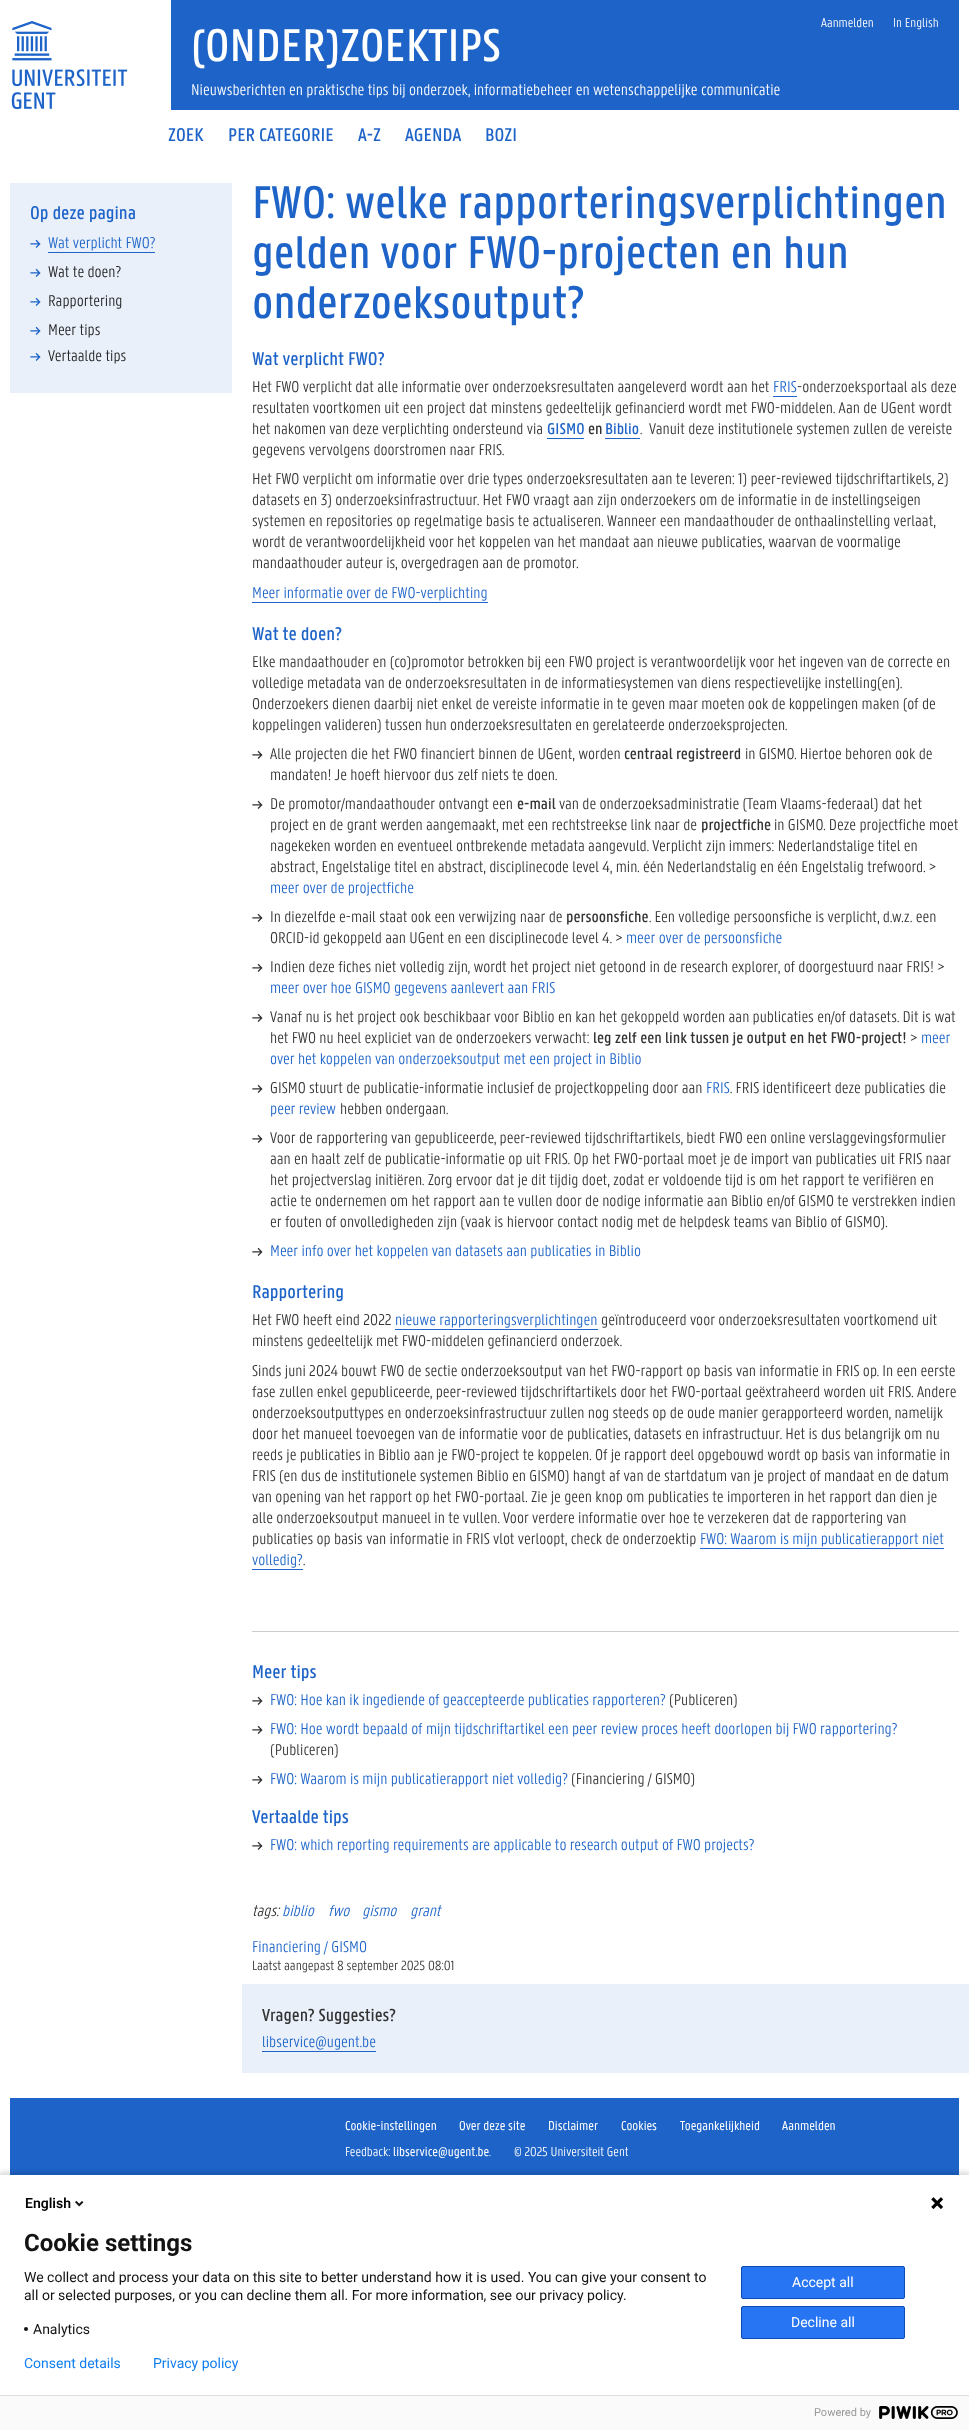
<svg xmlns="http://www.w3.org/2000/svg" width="969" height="2430">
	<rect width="100%" height="100%" fill="#FFFFFF" />
	<image x="11" y="21" width="117" height="89" href="assets/img1.png" />
	<rect x="171" y="0" width="788" height="110" fill="#1E64C8" />
	<g font-family="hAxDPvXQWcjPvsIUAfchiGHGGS" font-size="14" font-weight="300" fill="#FFFFFF">
		<text x="821" y="27">Aanmelden</text>
		<text x="893" y="27">In English</text>
	</g>
	<g font-family="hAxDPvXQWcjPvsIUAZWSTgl" font-size="20" font-weight="500" fill="#1E64C8">
		<text x="168" y="141">ZOEK</text>
		<text x="228" y="141">PER CATEGORIE</text>
		<text x="358" y="141">A-Z</text>
		<text x="405" y="141">AGENDA</text>
		<text x="485" y="141">BOZI</text>
	</g>
	<text x="191" y="61" font-family="hAxDPvXQWcjPvsIUAZWSTgl" font-size="50" font-weight="500" fill="#FFFFFF">(ONDER)ZOEKTIPS</text>
	<text x="191" y="95" font-family="hAxDPvXQWcjPvsIUAfchiGHGGS" font-size="17" font-weight="300" fill="#FFFFFF">Nieuwsberichten en praktische tips bij onderzoek, informatiebeheer en wetenschappelijke communicatie</text>
	<rect x="10" y="183" width="222" height="210" fill="#E9F0FA" />
	<text x="30" y="219" font-family="hAxDPvXQWcjPvsIUAZWSTgl" font-size="20" font-weight="500" fill="#1E64C8">Op deze pagina</text>
	<text x="30" y="249" font-family="hAxDPvXQWcjPvsIUAZWSTgl" font-size="16" font-weight="500" fill="#1E64C8">→</text>
	<text x="48" y="248" font-family="hAxDPvXQWcjPvsIUAfchiGHGGS" font-size="17" font-weight="300" fill="#1E64C8">Wat verplicht FWO?</text>
	<rect x="48" y="252" width="107" height="1" fill="#1E64C8" />
	<text x="30" y="278" font-family="hAxDPvXQWcjPvsIUAZWSTgl" font-size="16" font-weight="500" fill="#1E64C8">→</text>
	<text x="48" y="277" font-family="hAxDPvXQWcjPvsIUAfchiGHGGS" font-size="17" font-weight="300" fill="#202020">Wat te doen?</text>
	<text x="30" y="307" font-family="hAxDPvXQWcjPvsIUAZWSTgl" font-size="16" font-weight="500" fill="#1E64C8">→</text>
	<text x="48" y="306" font-family="hAxDPvXQWcjPvsIUAfchiGHGGS" font-size="17" font-weight="300" fill="#202020">Rapportering</text>
	<text x="30" y="336" font-family="hAxDPvXQWcjPvsIUAZWSTgl" font-size="16" font-weight="500" fill="#1E64C8">→</text>
	<text x="48" y="335" font-family="hAxDPvXQWcjPvsIUAfchiGHGGS" font-size="17" font-weight="300" fill="#202020">Meer tips</text>
	<text x="30" y="362" font-family="hAxDPvXQWcjPvsIUAZWSTgl" font-size="16" font-weight="500" fill="#1E64C8">→</text>
	<text x="48" y="361" font-family="hAxDPvXQWcjPvsIUAfchiGHGGS" font-size="17" font-weight="300" fill="#202020">Vertaalde tips</text>
	<g font-family="hAxDPvXQWcjPvsIUAZWSTgl" font-size="50" font-weight="500" fill="#1E64C8">
		<text x="252" y="218">FWO: welke rapporteringsverplichtingen</text>
		<text x="252" y="268">gelden voor FWO-projecten en hun</text>
		<text x="252" y="318">onderzoeksoutput?</text>
	</g>
	<text x="252" y="365" font-family="hAxDPvXQWcjPvsIUAZWSTgl" font-size="20" font-weight="500" fill="#1E64C8">Wat verplicht FWO?</text>
	<text x="252" y="392" font-family="hAxDPvXQWcjPvsIUAfchiGHGGS" font-size="17" font-weight="300" fill="#333333">Het FWO verplicht dat alle informatie over onderzoeksresultaten aangeleverd wordt aan het</text>
	<text x="773" y="392" font-family="hAxDPvXQWcjPvsIUAfchiGHGGS" font-size="17" font-weight="300" fill="#1E64C8">FRIS</text>
	<rect x="773" y="396" width="24" height="1" fill="#1E64C8" />
	<g font-family="hAxDPvXQWcjPvsIUAfchiGHGGS" font-size="17" font-weight="300" fill="#333333">
		<text x="797" y="392">-onderzoeksportaal als deze</text>
		<text x="252" y="413">resultaten voortkomen uit een project dat minstens gedeeltelijk gefinancierd wordt met FWO-middelen. Aan de UGent wordt</text>
		<text x="252" y="434">het nakomen van deze verplichting ondersteund via</text>
	</g>
	<text x="547" y="434" font-family="hAxDPvXQWcjPvsIUAZWSTgl" font-size="17" font-weight="500" fill="#1E64C8">GISMO</text>
	<rect x="547" y="438" width="37" height="1" fill="#1E64C8" />
	<text x="588" y="434" font-family="hAxDPvXQWcjPvsIUAZWSTgl" font-size="17" font-weight="500" fill="#333333">en</text>
	<text x="605" y="434" font-family="hAxDPvXQWcjPvsIUAZWSTgl" font-size="17" font-weight="500" fill="#1E64C8">Biblio</text>
	<rect x="605" y="438" width="35" height="1" fill="#1E64C8" />
	<g font-family="hAxDPvXQWcjPvsIUAfchiGHGGS" font-size="17" font-weight="300" fill="#333333">
		<text x="640" y="434" xml:space="preserve">.  Vanuit deze institutionele systemen zullen de vereiste</text>
		<text x="252" y="455">gegevens vervolgens doorstromen naar FRIS.</text>
		<text x="252" y="484">Het FWO verplicht om informatie over drie types onderzoeksresultaten aan te leveren: 1) peer-reviewed tijdschriftartikels, 2)</text>
		<text x="252" y="505">datasets en 3) onderzoeksinfrastructuur. Het FWO vraagt aan zijn onderzoekers om de informatie in de instellingseigen</text>
		<text x="252" y="526">systemen en repositories op regelmatige basis te actualiseren. Wanneer een mandaathouder de onthaalinstelling verlaat,</text>
		<text x="252" y="547">wordt de verantwoordelijkheid voor het koppelen van het mandaat aan nieuwe publicaties, waarvan de voormalige</text>
		<text x="252" y="568">mandaathouder auteur is, overgedragen aan de promotor.</text>
	</g>
	<text x="252" y="598" font-family="hAxDPvXQWcjPvsIUAfchiGHGGS" font-size="17" font-weight="300" fill="#1E64C8">Meer informatie over de FWO-verplichting</text>
	<rect x="252" y="602" width="236" height="1" fill="#1E64C8" />
	<text x="252" y="640" font-family="hAxDPvXQWcjPvsIUAZWSTgl" font-size="20" font-weight="500" fill="#1E64C8">Wat te doen?</text>
	<g font-family="hAxDPvXQWcjPvsIUAfchiGHGGS" font-size="17" font-weight="300" fill="#333333">
		<text x="252" y="667">Elke mandaathouder en (co)promotor betrokken bij een FWO project is verantwoordelijk voor het ingeven van de correcte en</text>
		<text x="252" y="688">volledige metadata van de onderzoeksresultaten in de informatiesystemen van diens respectievelijke instelling(en).</text>
		<text x="252" y="709">Onderzoekers dienen daarbij niet enkel de vereiste informatie in te geven maar moeten ook de koppelingen maken (of de</text>
		<text x="252" y="730">koppelingen valideren) tussen hun onderzoeksresultaten en gerelateerde onderzoeksprojecten.</text>
	</g>
	<text x="252" y="760" font-family="hAxDPvXQWcjPvsIUAZWSTgl" font-size="16" font-weight="500" fill="#333333">→</text>
	<text x="270" y="759" font-family="hAxDPvXQWcjPvsIUAfchiGHGGS" font-size="17" font-weight="300" fill="#333333">Alle projecten die het FWO financiert binnen de UGent, worden</text>
	<text x="624" y="759" font-family="hAxDPvXQWcjPvsIUAZWSTgl" font-size="17" font-weight="500" fill="#333333">centraal registreerd</text>
	<g font-family="hAxDPvXQWcjPvsIUAfchiGHGGS" font-size="17" font-weight="300" fill="#333333">
		<text x="745" y="759">in GISMO. Hiertoe behoren ook de</text>
		<text x="270" y="780">mandaten! Je hoeft hiervoor dus zelf niets te doen.</text>
	</g>
	<text x="252" y="810" font-family="hAxDPvXQWcjPvsIUAZWSTgl" font-size="16" font-weight="500" fill="#333333">→</text>
	<text x="270" y="809" font-family="hAxDPvXQWcjPvsIUAfchiGHGGS" font-size="17" font-weight="300" fill="#333333">De promotor/mandaathouder ontvangt een</text>
	<text x="517" y="809" font-family="hAxDPvXQWcjPvsIUAZWSTgl" font-size="17" font-weight="500" fill="#333333">e-mail</text>
	<g font-family="hAxDPvXQWcjPvsIUAfchiGHGGS" font-size="17" font-weight="300" fill="#333333">
		<text x="559" y="809">van de onderzoeksadministratie (Team Vlaams-federaal) dat het</text>
		<text x="270" y="830">project en de grant werden aangemaakt, met een rechtstreekse link naar de</text>
	</g>
	<text x="701" y="830" font-family="hAxDPvXQWcjPvsIUAZWSTgl" font-size="17" font-weight="500" fill="#333333">projectfiche</text>
	<g font-family="hAxDPvXQWcjPvsIUAfchiGHGGS" font-size="17" font-weight="300" fill="#333333">
		<text x="774" y="830">in GISMO. Deze projectfiche moet</text>
		<text x="270" y="851">nagekeken worden en eventueel ontbrekende metadata aangevuld. Verplicht zijn immers: Nederlandstalige titel en</text>
		<text x="270" y="872">abstract, Engelstalige titel en abstract, disciplinecode level 4, min. één Nederlandstalig en één Engelstalig trefwoord. &gt;</text>
	</g>
	<text x="270" y="893" font-family="hAxDPvXQWcjPvsIUAfchiGHGGS" font-size="17" font-weight="300" fill="#1E64C8">meer over de projectfiche</text>
	<text x="252" y="923" font-family="hAxDPvXQWcjPvsIUAZWSTgl" font-size="16" font-weight="500" fill="#333333">→</text>
	<text x="270" y="922" font-family="hAxDPvXQWcjPvsIUAfchiGHGGS" font-size="17" font-weight="300" fill="#333333">In diezelfde e-mail staat ook een verwijzing naar de</text>
	<text x="566" y="922" font-family="hAxDPvXQWcjPvsIUAZWSTgl" font-size="17" font-weight="500" fill="#333333">persoonsfiche</text>
	<g font-family="hAxDPvXQWcjPvsIUAfchiGHGGS" font-size="17" font-weight="300" fill="#333333">
		<text x="649" y="922">. Een volledige persoonsfiche is verplicht, d.w.z. een</text>
		<text x="270" y="943">ORCID-id gekoppeld aan UGent en een disciplinecode level 4. &gt;</text>
	</g>
	<text x="626" y="943" font-family="hAxDPvXQWcjPvsIUAfchiGHGGS" font-size="17" font-weight="300" fill="#1E64C8">meer over de persoonsfiche</text>
	<text x="252" y="973" font-family="hAxDPvXQWcjPvsIUAZWSTgl" font-size="16" font-weight="500" fill="#333333">→</text>
	<text x="270" y="972" font-family="hAxDPvXQWcjPvsIUAfchiGHGGS" font-size="17" font-weight="300" fill="#333333">Indien deze fiches niet volledig zijn, wordt het project niet getoond in de research explorer, of doorgestuurd naar FRIS! &gt;</text>
	<text x="270" y="993" font-family="hAxDPvXQWcjPvsIUAfchiGHGGS" font-size="17" font-weight="300" fill="#1E64C8">meer over hoe GISMO gegevens aanlevert aan FRIS</text>
	<text x="252" y="1023" font-family="hAxDPvXQWcjPvsIUAZWSTgl" font-size="16" font-weight="500" fill="#333333">→</text>
	<g font-family="hAxDPvXQWcjPvsIUAfchiGHGGS" font-size="17" font-weight="300" fill="#333333">
		<text x="270" y="1022">Vanaf nu is het project ook beschikbaar voor Biblio en kan het gekoppeld worden aan publicaties en/of datasets. Dit is wat</text>
		<text x="270" y="1043">het FWO nu heel expliciet van de onderzoekers verwacht:</text>
	</g>
	<text x="593" y="1043" font-family="hAxDPvXQWcjPvsIUAZWSTgl" font-size="17" font-weight="500" fill="#333333">leg zelf een link tussen je output en het FWO-project!</text>
	<text x="910" y="1043" font-family="hAxDPvXQWcjPvsIUAfchiGHGGS" font-size="17" font-weight="300" fill="#333333">&gt;</text>
	<g font-family="hAxDPvXQWcjPvsIUAfchiGHGGS" font-size="17" font-weight="300" fill="#1E64C8">
		<text x="921" y="1043">meer</text>
		<text x="270" y="1064">over het koppelen van onderzoeksoutput met een project in Biblio</text>
	</g>
	<text x="252" y="1094" font-family="hAxDPvXQWcjPvsIUAZWSTgl" font-size="16" font-weight="500" fill="#333333">→</text>
	<text x="270" y="1093" font-family="hAxDPvXQWcjPvsIUAfchiGHGGS" font-size="17" font-weight="300" fill="#333333">GISMO stuurt de publicatie-informatie inclusief de projectkoppeling door aan</text>
	<text x="706" y="1093" font-family="hAxDPvXQWcjPvsIUAfchiGHGGS" font-size="17" font-weight="300" fill="#1E64C8">FRIS</text>
	<text x="730" y="1093" font-family="hAxDPvXQWcjPvsIUAfchiGHGGS" font-size="17" font-weight="300" fill="#333333">. FRIS identificeert deze publicaties die</text>
	<text x="270" y="1114" font-family="hAxDPvXQWcjPvsIUAfchiGHGGS" font-size="17" font-weight="300" fill="#1E64C8">peer review</text>
	<text x="340" y="1114" font-family="hAxDPvXQWcjPvsIUAfchiGHGGS" font-size="17" font-weight="300" fill="#333333">hebben ondergaan.</text>
	<text x="252" y="1144" font-family="hAxDPvXQWcjPvsIUAZWSTgl" font-size="16" font-weight="500" fill="#333333">→</text>
	<g font-family="hAxDPvXQWcjPvsIUAfchiGHGGS" font-size="17" font-weight="300" fill="#333333">
		<text x="270" y="1143">Voor de rapportering van gepubliceerde, peer-reviewed tijdschriftartikels, biedt FWO een online verslaggevingsformulier</text>
		<text x="270" y="1164">aan en haalt zelf de publicatie-informatie op uit FRIS. Op het FWO-portaal moet je de import van publicaties uit FRIS naar</text>
		<text x="270" y="1185">het projectverslag initiëren. Zorg ervoor dat je dit tijdig doet, zodat er voldoende tijd is om het rapport te verifiëren en</text>
		<text x="270" y="1206">actie te ondernemen om het rapport aan te vullen door de nodige informatie aan Biblio en/of GISMO te verstrekken indien</text>
		<text x="270" y="1227">er fouten of onvolledigheden zijn (vaak is hiervoor contact nodig met de helpdesk teams van Biblio of GISMO).</text>
	</g>
	<text x="252" y="1257" font-family="hAxDPvXQWcjPvsIUAZWSTgl" font-size="16" font-weight="500" fill="#333333">→</text>
	<text x="270" y="1256" font-family="hAxDPvXQWcjPvsIUAfchiGHGGS" font-size="17" font-weight="300" fill="#1E64C8">Meer info over het koppelen van datasets aan publicaties in Biblio</text>
	<text x="252" y="1298" font-family="hAxDPvXQWcjPvsIUAZWSTgl" font-size="20" font-weight="500" fill="#1E64C8">Rapportering</text>
	<text x="252" y="1325" font-family="hAxDPvXQWcjPvsIUAfchiGHGGS" font-size="17" font-weight="300" fill="#333333">Het FWO heeft eind 2022</text>
	<text x="395" y="1325" font-family="hAxDPvXQWcjPvsIUAfchiGHGGS" font-size="17" font-weight="300" fill="#1E64C8">nieuwe rapporteringsverplichtingen</text>
	<rect x="395" y="1329" width="203" height="1" fill="#1E64C8" />
	<g font-family="hAxDPvXQWcjPvsIUAfchiGHGGS" font-size="17" font-weight="300" fill="#333333">
		<text x="601" y="1325">geïntroduceerd voor onderzoeksresultaten voortkomend uit</text>
		<text x="252" y="1346">minstens gedeeltelijk met FWO-middelen gefinancierd onderzoek.</text>
		<text x="252" y="1376">Sinds juni 2024 bouwt FWO de sectie onderzoeksoutput van het FWO-rapport op basis van informatie in FRIS op. In een eerste</text>
		<text x="252" y="1397">fase zullen enkel gepubliceerde, peer-reviewed tijdschriftartikels door het FWO-portaal geëxtraheerd worden uit FRIS. Andere</text>
		<text x="252" y="1418">onderzoeksoutputtypes en onderzoeksinfrastructuur zullen nog steeds op de oude manier gerapporteerd worden, namelijk</text>
		<text x="252" y="1439">door het manueel toevoegen van de informatie voor de publicaties, datasets en infrastructuur. Het is dus belangrijk om nu</text>
		<text x="252" y="1460">reeds je publicaties in Biblio aan je FWO-project te koppelen. Of je rapport deel opgebouwd wordt op basis van informatie in</text>
		<text x="252" y="1481">FRIS (en dus de institutionele systemen Biblio en GISMO) hangt af van de startdatum van je project of mandaat en de datum</text>
		<text x="252" y="1502">van opening van het rapport op het FWO-portaal. Zie je geen knop om publicaties te importeren in het rapport dan dien je</text>
		<text x="252" y="1523">alle onderzoeksoutput manueel in te vullen. Voor verdere informatie over hoe te verzekeren dat de rapportering van</text>
		<text x="252" y="1544">publicaties op basis van informatie in FRIS vlot verloopt, check de onderzoektip</text>
	</g>
	<text x="700" y="1544" font-family="hAxDPvXQWcjPvsIUAfchiGHGGS" font-size="17" font-weight="300" fill="#1E64C8">FWO: Waarom is mijn publicatierapport niet</text>
	<rect x="700" y="1548" width="244" height="1" fill="#1E64C8" />
	<text x="252" y="1565" font-family="hAxDPvXQWcjPvsIUAfchiGHGGS" font-size="17" font-weight="300" fill="#1E64C8">volledig?</text>
	<rect x="252" y="1569" width="51" height="1" fill="#1E64C8" />
	<text x="303" y="1565" font-family="hAxDPvXQWcjPvsIUAfchiGHGGS" font-size="17" font-weight="300" fill="#333333">.</text>
	<rect x="252" y="1631" width="707" height="1" fill="#CCCCCC" />
	<text x="252" y="1678" font-family="hAxDPvXQWcjPvsIUAZWSTgl" font-size="20" font-weight="500" fill="#1E64C8">Meer tips</text>
	<text x="252" y="1706" font-family="hAxDPvXQWcjPvsIUAZWSTgl" font-size="16" font-weight="500" fill="#333333">→</text>
	<text x="270" y="1705" font-family="hAxDPvXQWcjPvsIUAfchiGHGGS" font-size="17" font-weight="300" fill="#1E64C8">FWO: Hoe kan ik ingediende of geaccepteerde publicaties rapporteren?</text>
	<text x="669" y="1705" font-family="hAxDPvXQWcjPvsIUAfchiGHGGS" font-size="17" font-weight="300" fill="#333333">(Publiceren)</text>
	<text x="252" y="1735" font-family="hAxDPvXQWcjPvsIUAZWSTgl" font-size="16" font-weight="500" fill="#333333">→</text>
	<text x="270" y="1734" font-family="hAxDPvXQWcjPvsIUAfchiGHGGS" font-size="17" font-weight="300" fill="#1E64C8">FWO: Hoe wordt bepaald of mijn tijdschriftartikel een peer review proces heeft doorlopen bij FWO rapportering?</text>
	<text x="270" y="1755" font-family="hAxDPvXQWcjPvsIUAfchiGHGGS" font-size="17" font-weight="300" fill="#333333">(Publiceren)</text>
	<text x="252" y="1785" font-family="hAxDPvXQWcjPvsIUAZWSTgl" font-size="16" font-weight="500" fill="#333333">→</text>
	<text x="270" y="1784" font-family="hAxDPvXQWcjPvsIUAfchiGHGGS" font-size="17" font-weight="300" fill="#1E64C8">FWO: Waarom is mijn publicatierapport niet volledig?</text>
	<text x="571" y="1784" font-family="hAxDPvXQWcjPvsIUAfchiGHGGS" font-size="17" font-weight="300" fill="#333333">(Financiering / GISMO)</text>
	<text x="252" y="1823" font-family="hAxDPvXQWcjPvsIUAZWSTgl" font-size="20" font-weight="500" fill="#1E64C8">Vertaalde tips</text>
	<text x="252" y="1851" font-family="hAxDPvXQWcjPvsIUAZWSTgl" font-size="16" font-weight="500" fill="#333333">→</text>
	<text x="270" y="1850" font-family="hAxDPvXQWcjPvsIUAfchiGHGGS" font-size="17" font-weight="300" fill="#1E64C8">FWO: which reporting requirements are applicable to research output of FWO projects?</text>
	<text x="252" y="1916" font-family="hAxDPvXQWcjPvsIUAfchiGHGGS" font-size="17" font-weight="300" font-style="italic" fill="#333333">tags:</text>
	<g font-family="hAxDPvXQWcjPvsIUAfchiGHGGS" font-size="17" font-weight="300" font-style="italic" fill="#1E64C8">
		<text x="282" y="1916">biblio</text>
		<text x="328" y="1916">fwo</text>
		<text x="362" y="1916">gismo</text>
		<text x="410" y="1916">grant</text>
	</g>
	<text x="252" y="1952" font-family="hAxDPvXQWcjPvsIUAfchiGHGGS" font-size="17" font-weight="300" fill="#1E64C8">Financiering / GISMO</text>
	<text x="252" y="1970" font-family="hAxDPvXQWcjPvsIUAfchiGHGGS" font-size="14.5" font-weight="300" fill="#333333">Laatst aangepast 8 september 2025 08:01</text>
	<rect x="242" y="1984" width="727" height="89" fill="#E9F0FA" />
	<text x="262" y="2021" font-family="hAxDPvXQWcjPvsIUAZWSTgl" font-size="19" font-weight="500" fill="#333333">Vragen? Suggesties?</text>
	<text x="262" y="2047" font-family="hAxDPvXQWcjPvsIUAfchiGHGGS" font-size="17" font-weight="300" fill="#1E64C8">libservice@ugent.be</text>
	<rect x="262" y="2051" width="114" height="1" fill="#1E64C8" />
	<rect x="10" y="2098" width="949" height="77" fill="#1E64C8" />
	<g font-family="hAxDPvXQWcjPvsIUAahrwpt" font-size="14" fill="#FFFFFF">
		<text x="345" y="2130">Cookie-instellingen</text>
		<text x="459" y="2130">Over deze site</text>
		<text x="548" y="2130">Disclaimer</text>
		<text x="621" y="2130">Cookies</text>
		<text x="680" y="2130">Toegankelijkheid</text>
		<text x="782" y="2130">Aanmelden</text>
	</g>
	<text x="345" y="2156" font-family="hAxDPvXQWcjPvsIUAfchiGHGGS" font-size="14" font-weight="300" fill="#FFFFFF">Feedback:</text>
	<text x="393" y="2156" font-family="hAxDPvXQWcjPvsIUAahrwpt" font-size="14" fill="#FFFFFF">libservice@ugent.be</text>
	<g font-family="hAxDPvXQWcjPvsIUAfchiGHGGS" font-size="14" font-weight="300" fill="#FFFFFF">
		<text x="489" y="2156">.</text>
		<text x="514" y="2156">© 2025 Universiteit Gent</text>
	</g>
	<rect x="-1" y="2172" width="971" height="257" fill="#000000" fill-opacity="0.14" filter="blur(2.5px)" />
	<rect x="0" y="2175" width="969" height="220" fill="#FFFFFF" />
	<text x="25" y="2208" font-family="Roboto" font-size="14" font-weight="600" fill="#000000">English</text>
	<image x="75" y="2200" width="9" height="7" href="assets/img2.png" />
	<image x="931" y="2197" width="13" height="13" href="assets/img3.png" />
	<text x="24" y="2251" font-family="Roboto" font-size="24" font-weight="700" fill="#131313">Cookie settings</text>
	<g font-family="Roboto" font-size="14" fill="#131313">
		<text x="24" y="2282">We collect and process your data on this site to better understand how it is used. You can give your consent to</text>
		<text x="24" y="2300">all or selected purposes, or you can decline them all. For more information, see our privacy policy.</text>
	</g>
	<circle cx="26" cy="2329" r="2" fill="#131313" />
	<text x="33" y="2334" font-family="Roboto" font-size="14" fill="#131313">Analytics</text>
	<rect x="741.5" y="2266.5" width="163" height="32" rx="1.5" fill="#2775F2" stroke="#0B4BB3" />
	<text x="792" y="2287" font-family="Roboto" font-size="14" fill="#FFFFFF">Accept all</text>
	<rect x="741.5" y="2306.5" width="163" height="32" rx="1.5" fill="#2775F2" stroke="#0B4BB3" />
	<text x="791" y="2327" font-family="Roboto" font-size="14" fill="#FFFFFF">Decline all</text>
	<g font-family="Roboto" font-size="14" fill="#107EF1">
		<text x="24" y="2368">Consent details</text>
		<text x="153" y="2368">Privacy policy</text>
	</g>
	<rect x="0" y="2396" width="969" height="34" fill="#FAFAFA" />
	<rect x="0" y="2395" width="969" height="1" fill="#DDDDDD" />
	<text x="814" y="2416" font-family="Roboto" font-size="11" fill="#999999">Powered by</text>
	<image x="879" y="2406" width="79" height="13" href="assets/img4.png" />
</svg>
